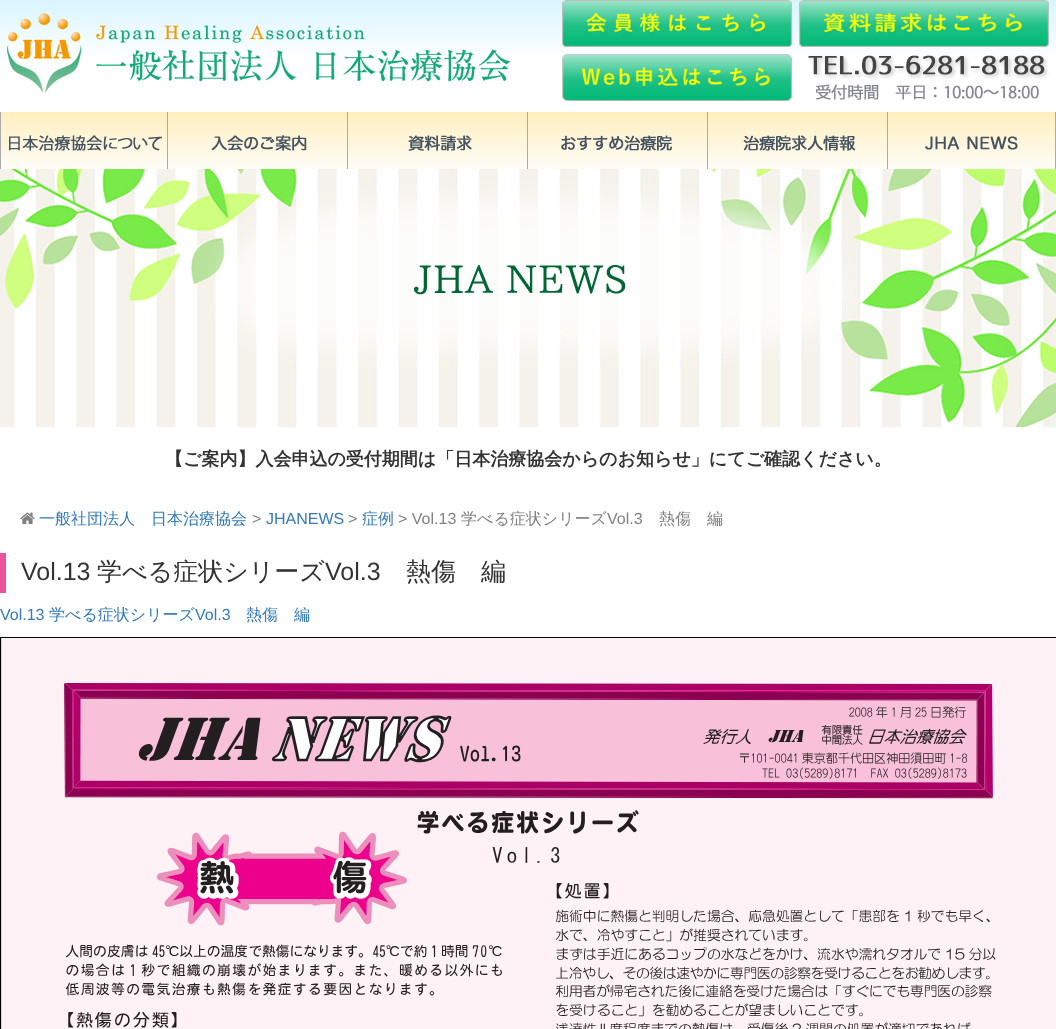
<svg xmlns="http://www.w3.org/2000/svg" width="1056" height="1029">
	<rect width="100%" height="100%" fill="#FFFFFF" />
	<image x="0" y="0" width="1056" height="55" href="assets/img1.png" />
	<image x="7" y="13" width="504" height="80" href="assets/img2.png" />
	<image x="562" y="0" width="230" height="47" href="assets/img3.png" />
	<image x="562" y="54" width="230" height="47" href="assets/img4.png" />
	<image x="799" y="0" width="250" height="47" href="assets/img5.png" />
	<image x="808" y="55" width="241" height="45" href="assets/img6.png" />
	<image x="0" y="112" width="167" height="57" href="assets/img7.png" />
	<image x="167" y="112" width="180" height="57" href="assets/img8.png" />
	<image x="347" y="112" width="180" height="57" href="assets/img9.png" />
	<image x="527" y="112" width="180" height="57" href="assets/img10.png" />
	<image x="707" y="112" width="180" height="57" href="assets/img11.png" />
	<image x="887" y="112" width="169" height="57" href="assets/img12.png" />
	<image x="0" y="169" width="1056" height="258" href="assets/img13.png" />
	<text x="165" y="465" font-family="WenQuanYi Zen Hei" font-size="18" font-weight="700" fill="#333333">【ご案内】入会申込の受付期間は「日本治療協会からのお知らせ」にてご確認ください。</text>
	<image x="20" y="512" width="15" height="12" href="assets/img14.png" />
	<text x="39" y="524" font-family="WenQuanYi Zen Hei" font-size="16" font-weight="500" fill="#337AB7">一般社団法人　日本治療協会</text>
	<text x="252" y="524" font-family="Liberation Sans" font-size="16" fill="#808080">&gt;</text>
	<text x="266" y="524" font-family="Liberation Sans" font-size="16" fill="#337AB7">JHANEWS</text>
	<text x="348" y="524" font-family="Liberation Sans" font-size="16" fill="#808080">&gt;</text>
	<text x="362" y="524" font-family="WenQuanYi Zen Hei" font-size="16" font-weight="500" fill="#337AB7">症例</text>
	<text x="398" y="524" font-family="Liberation Sans" font-size="16" fill="#808080">&gt; Vol.13</text>
	<text x="461" y="524" font-family="WenQuanYi Zen Hei" font-size="16" font-weight="500" fill="#808080">学べる症状シリーズ</text>
	<text x="607" y="524" font-family="Liberation Sans" font-size="16" fill="#808080">Vol.3</text>
	<text x="659" y="524" font-family="WenQuanYi Zen Hei" font-size="16" font-weight="500" fill="#808080">熱傷　編</text>
	<rect x="0" y="553" width="6" height="40" fill="#ED5399" />
	<text x="21" y="580" font-family="Liberation Sans" font-size="25" fill="#333333">Vol.13</text>
	<text x="97" y="580" font-family="WenQuanYi Zen Hei" font-size="25" font-weight="500" fill="#333333">学べる症状シリーズ</text>
	<text x="325" y="580" font-family="Liberation Sans" font-size="25" fill="#333333">Vol.3</text>
	<text x="406" y="580" font-family="WenQuanYi Zen Hei" font-size="25" font-weight="500" fill="#333333">熱傷　編</text>
	<text x="0" y="620" font-family="Liberation Sans" font-size="16" fill="#337AB7">Vol.13</text>
	<text x="49" y="620" font-family="WenQuanYi Zen Hei" font-size="16" font-weight="500" fill="#337AB7">学べる症状シリーズ</text>
	<text x="195" y="620" font-family="Liberation Sans" font-size="16" fill="#337AB7">Vol.3</text>
	<text x="246" y="620" font-family="WenQuanYi Zen Hei" font-size="16" font-weight="500" fill="#337AB7">熱傷　編</text>
	<rect x="1" y="638" width="1" height="391" fill="#D3D3D3" />
	<rect x="0.5" y="637.5" width="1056" height="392" fill="none" stroke="#000000" />
	<image x="2" y="638" width="1054" height="391" href="assets/img15.png" />
</svg>
